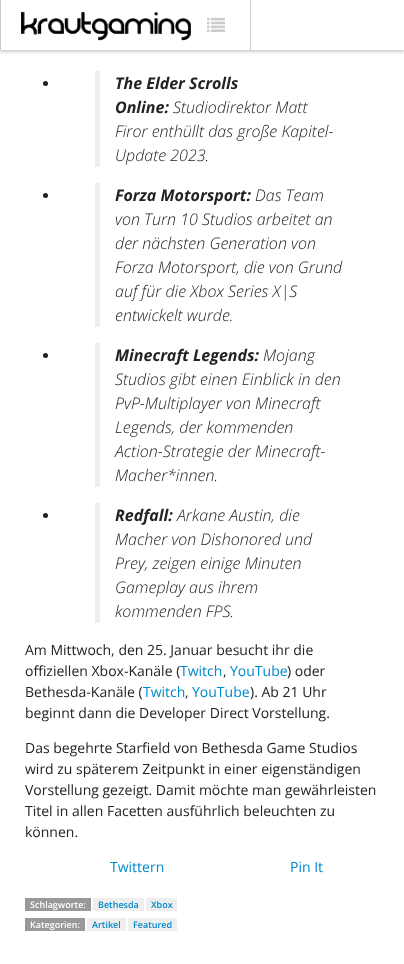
<svg xmlns="http://www.w3.org/2000/svg" width="404" height="964">
	<rect width="100%" height="100%" fill="#FFFFFF" />
	<rect x="0" y="2" width="404" height="50" fill="#000000" fill-opacity="0.2" filter="blur(1.5px)" />
	<rect x="1" y="0" width="403" height="50" fill="#FFFFFF" />
	<rect x="0" y="0" width="1" height="50" fill="#CCCCCC" />
	<rect x="250" y="0" width="1" height="50" fill="#CCCCCC" />
	<image x="21" y="11" width="170" height="30" href="assets/img1.png" />
	<image x="207" y="17" width="18" height="15" href="assets/img2.png" />
	<circle cx="45.5" cy="83.5" r="2.5" fill="#222222" />
	<rect x="95" y="71" width="5" height="96" fill="#EEEEEE" />
	<g font-family="Open Sans" font-size="16" font-weight="700" font-style="italic" fill="#222222">
		<text x="115" y="89">The Elder Scrolls</text>
		<text x="115" y="113">Online:</text>
	</g>
	<g font-family="Open Sans" font-size="16" font-weight="300" font-style="italic" fill="#222222">
		<text x="173" y="113">Studiodirektor Matt</text>
		<text x="115" y="137">Firor enthüllt das große Kapitel-</text>
		<text x="115" y="161">Update 2023.</text>
	</g>
	<circle cx="45.5" cy="195.5" r="2.5" fill="#222222" />
	<rect x="95" y="183" width="5" height="144" fill="#EEEEEE" />
	<text x="115" y="201" font-family="Open Sans" font-size="16" font-weight="700" font-style="italic" fill="#222222">Forza Motorsport:</text>
	<g font-family="Open Sans" font-size="16" font-weight="300" font-style="italic" fill="#222222">
		<text x="255" y="201">Das Team</text>
		<text x="115" y="225">von Turn 10 Studios arbeitet an</text>
		<text x="115" y="249">der nächsten Generation von</text>
		<text x="115" y="273">Forza Motorsport, die von Grund</text>
		<text x="115" y="297">auf für die Xbox Series X|S</text>
		<text x="115" y="321">entwickelt wurde.</text>
	</g>
	<circle cx="45.5" cy="355.5" r="2.5" fill="#222222" />
	<rect x="95" y="343" width="5" height="144" fill="#EEEEEE" />
	<text x="115" y="361" font-family="Open Sans" font-size="16" font-weight="700" font-style="italic" fill="#222222">Minecraft Legends:</text>
	<g font-family="Open Sans" font-size="16" font-weight="300" font-style="italic" fill="#222222">
		<text x="263" y="361">Mojang</text>
		<text x="115" y="385">Studios gibt einen Einblick in den</text>
		<text x="115" y="409">PvP-Multiplayer von Minecraft</text>
		<text x="115" y="433">Legends, der kommenden</text>
		<text x="115" y="457">Action-Strategie der Minecraft-</text>
		<text x="115" y="481">Macher*innen.</text>
	</g>
	<circle cx="45.5" cy="515.5" r="2.5" fill="#222222" />
	<rect x="95" y="503" width="5" height="120" fill="#EEEEEE" />
	<text x="115" y="521" font-family="Open Sans" font-size="16" font-weight="700" font-style="italic" fill="#222222">Redfall:</text>
	<g font-family="Open Sans" font-size="16" font-weight="300" font-style="italic" fill="#222222">
		<text x="177" y="521">Arkane Austin, die</text>
		<text x="115" y="545">Macher von Dishonored und</text>
		<text x="115" y="569">Prey, zeigen einige Minuten</text>
		<text x="115" y="593">Gameplay aus ihrem</text>
		<text x="115" y="617">kommenden FPS.</text>
	</g>
	<g font-family="Open Sans" font-size="14" fill="#222222">
		<text x="25" y="655">Am Mittwoch, den 25. Januar besucht ihr die</text>
		<text x="25" y="676">offiziellen Xbox-Kanäle (</text>
	</g>
	<text x="180" y="676" font-family="Open Sans" font-size="14" fill="#0088CC">Twitch</text>
	<text x="223" y="676" font-family="Open Sans" font-size="14" fill="#222222">,</text>
	<text x="230" y="676" font-family="Open Sans" font-size="14" fill="#0088CC">YouTube</text>
	<g font-family="Open Sans" font-size="14" fill="#222222">
		<text x="287" y="676">) oder</text>
		<text x="25" y="697">Bethesda-Kanäle (</text>
	</g>
	<text x="143" y="697" font-family="Open Sans" font-size="14" fill="#0088CC">Twitch</text>
	<text x="185" y="697" font-family="Open Sans" font-size="14" fill="#222222">,</text>
	<text x="192" y="697" font-family="Open Sans" font-size="14" fill="#0088CC">YouTube</text>
	<g font-family="Open Sans" font-size="14" fill="#222222">
		<text x="250" y="697">). Ab 21 Uhr</text>
		<text x="25" y="718">beginnt dann die Developer Direct Vorstellung.</text>
		<text x="25" y="753">Das begehrte Starfield von Bethesda Game Studios</text>
		<text x="25" y="774">wird zu späterem Zeitpunkt in einer eigenständigen</text>
		<text x="25" y="795">Vorstellung gezeigt. Damit möchte man gewährleisten</text>
		<text x="25" y="816">Titel in allen Facetten ausführlich beleuchten zu</text>
		<text x="25" y="837">können.</text>
	</g>
	<g font-family="Open Sans" font-size="14" fill="#0088CC">
		<text x="110" y="872">Twittern</text>
		<text x="290" y="872">Pin It</text>
	</g>
	<rect x="25" y="898" width="66" height="13" fill="#999999" />
	<text x="30" y="908" font-family="Open Sans" font-size="9" font-weight="600" fill="#FFFFFF">Schlagworte:</text>
	<rect x="93" y="898" width="51" height="13" fill="#EEEEEE" />
	<text x="98" y="908" font-family="Open Sans" font-size="9" font-weight="600" fill="#0088CC">Bethesda</text>
	<rect x="146" y="898" width="31" height="13" fill="#EEEEEE" />
	<text x="151" y="908" font-family="Open Sans" font-size="9" font-weight="600" fill="#0088CC">Xbox</text>
	<rect x="25" y="918" width="60" height="13" fill="#999999" />
	<text x="30" y="928" font-family="Open Sans" font-size="9" font-weight="600" fill="#FFFFFF">Kategorien:</text>
	<rect x="87" y="918" width="39" height="13" fill="#EEEEEE" />
	<text x="92" y="928" font-family="Open Sans" font-size="9" font-weight="600" fill="#0088CC">Artikel</text>
	<rect x="128" y="918" width="49" height="13" fill="#EEEEEE" />
	<text x="133" y="928" font-family="Open Sans" font-size="9" font-weight="600" fill="#0088CC">Featured</text>
</svg>
